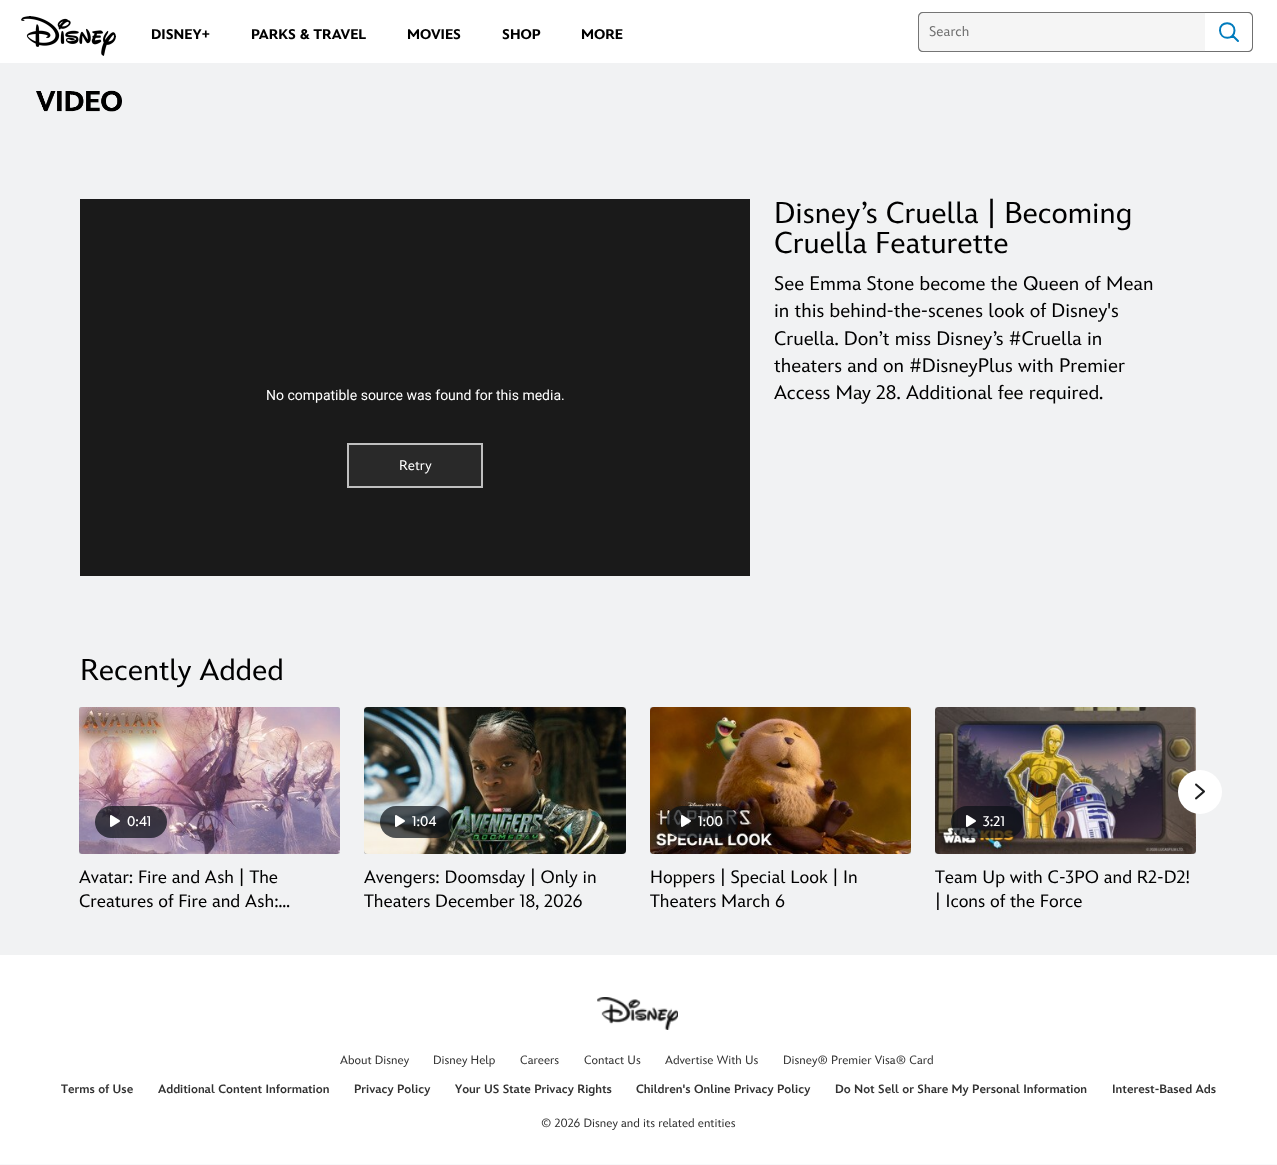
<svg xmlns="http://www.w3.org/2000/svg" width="1277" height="1165">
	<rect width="100%" height="100%" fill="#F8F9FA" />
	<rect x="0" y="0" width="1277" height="63" fill="#FFFFFF" />
	<image x="21" y="16" width="95" height="40" href="assets/img1.png" />
	<g font-family="'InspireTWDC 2'" font-size="14" font-weight="900" fill="#000000">
		<text x="151" y="39">DISNEY+</text>
		<text x="251" y="39">PARKS &amp; TRAVEL</text>
		<text x="407" y="39">MOVIES</text>
		<text x="502" y="39">SHOP</text>
		<text x="581" y="39">MORE</text>
	</g>
	<path d="M923 12H1205V52H923C920 52 918 50 918 47V17C918 14 920 12 923 12Z" fill="#F5F5F5" />
	<path d="M923 12H1205V52H923C920 52 918 50 918 47V17C918 14 920 12 923 12ZM923 13H1205V51H923C921 51 919 49 919 47V17C919 15 921 13 923 13Z" fill="#757575" fill-rule="evenodd" />
	<text x="929" y="36" font-family="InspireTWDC" font-size="14" fill="#707070">Search</text>
	<path d="M1205 12H1248C1251 12 1253 14 1253 17V47C1253 50 1251 52 1248 52H1205ZM1205 13H1248C1250 13 1252 15 1252 17V47C1252 49 1250 51 1248 51H1205Z" fill="#707070" fill-rule="evenodd" />
	<path d="M1234.5 30.5C1234.5 20.5 1219.5 21 1220 30.5C1220.5 40.5 1234.5 40 1234.5 30.5ZM1233 36L1238 41Z" fill="none" stroke="#007BBD" stroke-width="2" stroke-linecap="round" stroke-linejoin="round" />
	<rect x="0" y="63" width="1277" height="892" fill="#F1F2F3" />
	<image x="36" y="90" width="86" height="22" href="assets/img2.png" />
	<g font-family="InspireTWDC" font-size="30" fill="#000000">
		<text x="774" y="223">Disney’s Cruella | Becoming</text>
		<text x="774" y="253">Cruella Featurette</text>
	</g>
	<g font-family="InspireTWDC" font-size="19.5" fill="#000000">
		<text x="774" y="290">See Emma Stone become the Queen of Mean</text>
		<text x="774" y="317">in this behind-the-scenes look of Disney's</text>
		<text x="774" y="345">Cruella. Don’t miss Disney’s #Cruella in</text>
		<text x="774" y="372">theaters and on #DisneyPlus with Premier</text>
		<text x="774" y="399">Access May 28. Additional fee required.</text>
	</g>
	<rect x="80" y="199" width="670" height="377" fill="#1A1A1A" />
	<text x="266" y="400" font-family="Roboto" font-size="14" fill="#FFFFFF">No compatible source was found for this media.</text>
	<rect x="348" y="444" width="134" height="43" fill="#292929" stroke="#BFBFBF" stroke-width="2" />
	<text x="399" y="470" font-family="InspireTWDC" font-size="14" fill="#FFFFFF">Retry</text>
	<text x="80" y="680" font-family="InspireTWDC" font-size="30" fill="#000000">Recently Added</text>
	<rect x="935" y="707" width="261" height="147" rx="2" fill="#000000" fill-opacity="0.25" filter="blur(0.5px)" />
	<image x="935" y="707" width="261" height="147" href="assets/img10.png" />
	<circle cx="1200" cy="792" r="22" fill="#FFFFFF" />
	<image x="1195" y="783" width="10" height="17" href="assets/img3.png" />
	<rect x="79" y="707" width="261" height="147" rx="2" fill="#000000" fill-opacity="0.25" filter="blur(0.5px)" />
	<image x="79" y="707" width="261" height="147" href="assets/img4.png" />
	<rect x="95" y="806" width="72" height="32" rx="16" fill="#0A1016" fill-opacity="0.7" />
	<image x="110" y="815" width="10" height="12" href="assets/img5.png" />
	<text x="127" y="826" font-family="InspireTWDC" font-size="14" font-weight="500" fill="#FFFFFF">0:41</text>
	<g font-family="InspireTWDC" font-size="18" fill="#000000">
		<text x="79" y="883">Avatar: Fire and Ash | The</text>
		<text x="79" y="907">Creatures of Fire and Ash:…</text>
	</g>
	<rect x="364" y="707" width="262" height="147" rx="2" fill="#000000" fill-opacity="0.25" filter="blur(0.5px)" />
	<image x="364" y="707" width="262" height="147" href="assets/img6.png" />
	<rect x="380" y="806" width="72" height="32" rx="16" fill="#0A1016" fill-opacity="0.7" />
	<image x="395" y="815" width="10" height="12" href="assets/img7.png" />
	<text x="412" y="826" font-family="InspireTWDC" font-size="14" font-weight="500" fill="#FFFFFF">1:04</text>
	<g font-family="InspireTWDC" font-size="18" fill="#000000">
		<text x="364" y="883">Avengers: Doomsday | Only in</text>
		<text x="364" y="907">Theaters December 18, 2026</text>
	</g>
	<rect x="650" y="707" width="261" height="147" rx="2" fill="#000000" fill-opacity="0.25" filter="blur(0.5px)" />
	<image x="650" y="707" width="261" height="147" href="assets/img8.png" />
	<rect x="666" y="806" width="72" height="32" rx="16" fill="#0A1016" fill-opacity="0.7" />
	<image x="681" y="815" width="10" height="12" href="assets/img9.png" />
	<text x="698" y="826" font-family="InspireTWDC" font-size="14" font-weight="500" fill="#FFFFFF">1:00</text>
	<g font-family="InspireTWDC" font-size="18" fill="#000000">
		<text x="650" y="883">Hoppers | Special Look | In</text>
		<text x="650" y="907">Theaters March 6</text>
	</g>
	<rect x="951" y="806" width="72" height="32" rx="16" fill="#0A1016" fill-opacity="0.7" />
	<image x="966" y="815" width="10" height="12" href="assets/img11.png" />
	<text x="983" y="826" font-family="InspireTWDC" font-size="14" font-weight="500" fill="#FFFFFF">3:21</text>
	<g font-family="InspireTWDC" font-size="18" fill="#000000">
		<text x="935" y="883">Team Up with C-3PO and R2-D2!</text>
		<text x="935" y="907">| Icons of the Force</text>
	</g>
	<rect x="0" y="955" width="1277" height="209" fill="#FFFFFF" />
	<image x="597" y="997" width="81" height="33" href="assets/img12.png" />
	<g font-family="InspireTWDC" font-size="12" fill="#333333">
		<text x="340" y="1064">About Disney</text>
		<text x="433" y="1064">Disney Help</text>
		<text x="520" y="1064">Careers</text>
		<text x="584" y="1064">Contact Us</text>
		<text x="665" y="1064">Advertise With Us</text>
		<text x="783" y="1064">Disney® Premier Visa® Card</text>
	</g>
	<g font-family="InspireTWDC" font-size="12" font-weight="900" fill="#333333">
		<text x="61" y="1093">Terms of Use</text>
		<text x="158" y="1093">Additional Content Information</text>
		<text x="354" y="1093">Privacy Policy</text>
		<text x="455" y="1093">Your US State Privacy Rights</text>
		<text x="636" y="1093">Children's Online Privacy Policy</text>
		<text x="835" y="1093">Do Not Sell or Share My Personal Information</text>
		<text x="1112" y="1093">Interest-Based Ads</text>
	</g>
	<text x="541" y="1127" font-family="InspireTWDC" font-size="12" fill="#333333">© 2026 Disney and its related entities</text>
</svg>
